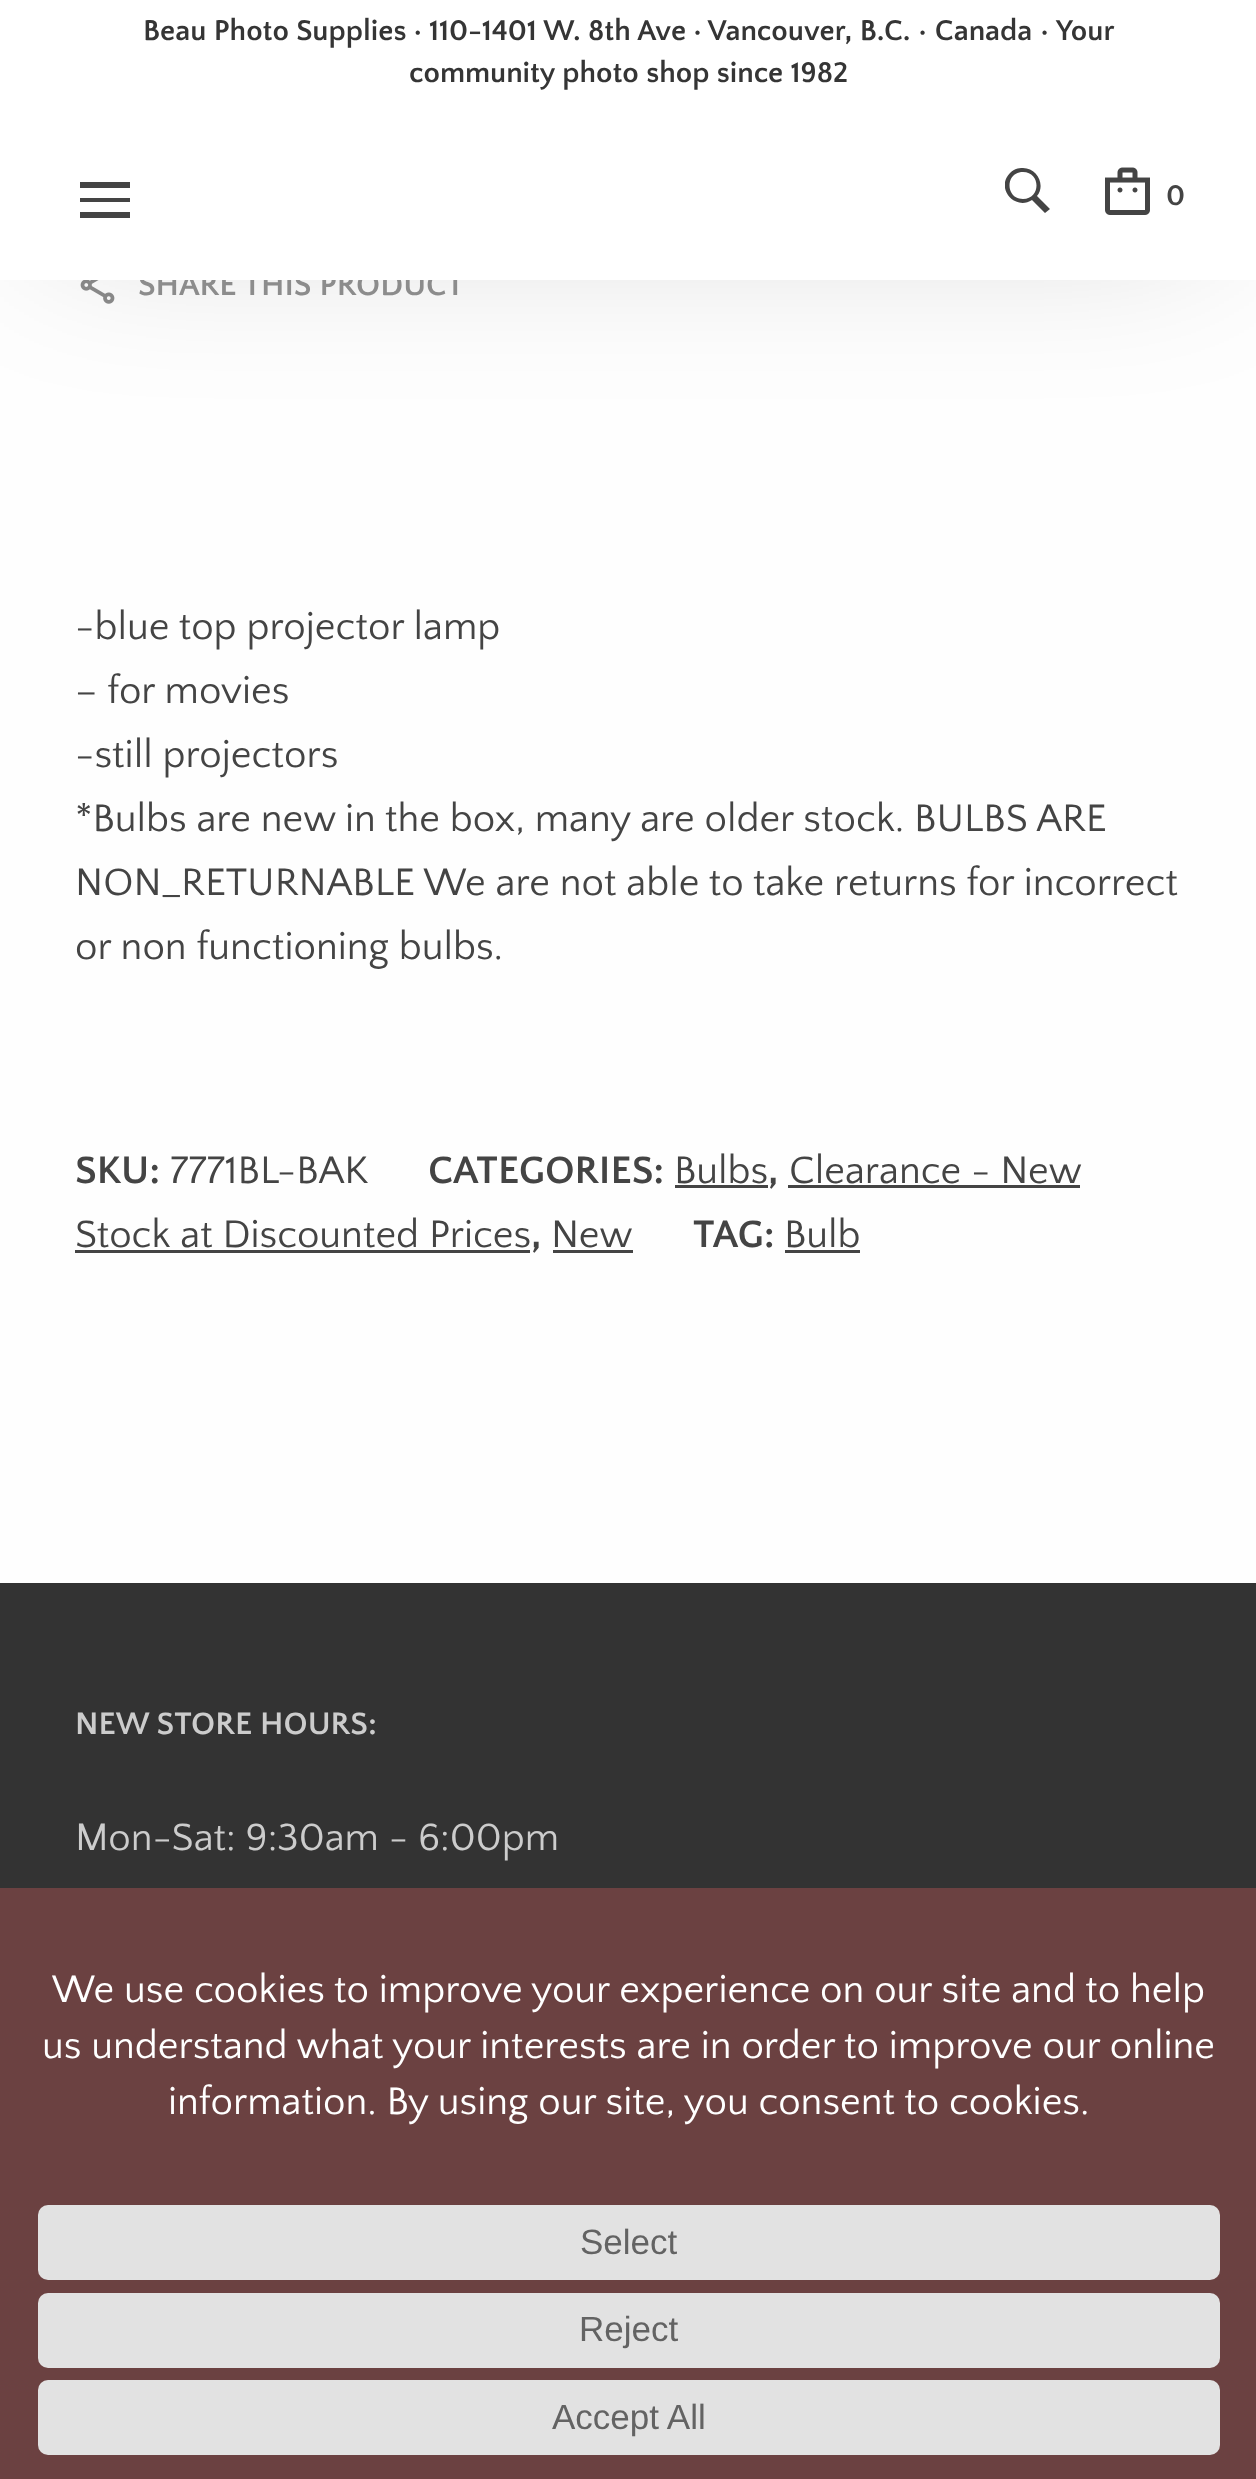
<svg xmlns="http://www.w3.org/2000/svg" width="1256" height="2479">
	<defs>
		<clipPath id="clip1"><rect x="1005" y="168" width="55" height="55" /></clipPath>
	</defs>
	<rect width="100%" height="100%" fill="#FEFEFE" />
	<image x="80" y="280" width="35" height="24" href="assets/img2.png" />
	<rect x="48" y="48" width="1162" height="185" fill="#000000" fill-opacity="0.17" filter="blur(81px)" />
	<text x="138" y="295" font-family="Quattrocento Sans" font-size="32.5" font-weight="700" fill="#8C8C8C">SHARE THIS PRODUCT</text>
	<rect x="0" y="0" width="1256" height="280" fill="#FFFFFF" />
	<g font-family="Quattrocento Sans" font-size="30" font-weight="700" fill="#353535">
		<text x="143" y="40">Beau Photo Supplies · 110-1401 W. 8th Ave · Vancouver, B.C. • Canada •</text>
		<text x="1056" y="40">Your</text>
		<text x="409" y="82">community photo shop since 1982</text>
	</g>
	<path d="M80 182V188H130V182ZM80 198V202H130V198ZM80 212V218H130V212Z" fill="#444444" />
	<g clip-path="url(#clip1)">
		<path d="M1023 168C1018 168 1014 169 1010 173C995 188 1015 211 1032 200L1045 213L1050 209L1037 196C1046 185 1037 168 1023 168ZM1023 172C1041 172 1041 199 1023 199C1005 199 1005 172 1023 172Z" fill="#444444" />
	</g>
	<image x="1105" y="167" width="45" height="48" href="assets/img1.png" />
	<text x="1166" y="205" font-family="Quattrocento Sans" font-size="30" font-weight="700" fill="#444444">0</text>
	<g font-family="Quattrocento Sans" font-size="40" fill="#444444">
		<text x="75" y="639">-blue top projector lamp</text>
		<text x="75" y="703">– for movies</text>
		<text x="75" y="767">-still projectors</text>
		<text x="75" y="831">*Bulbs are new in the box, many are older stock. BULBS ARE</text>
		<text x="75" y="895">NON_RETURNABLE We are not able to take returns for incorrect</text>
		<text x="75" y="959">or non functioning bulbs.</text>
	</g>
	<text x="75" y="1183" font-family="Quattrocento Sans" font-size="40" font-weight="700" fill="#444444">SKU:</text>
	<text x="170" y="1183" font-family="Quattrocento Sans" font-size="40" fill="#444444">7771BL-BAK</text>
	<text x="428" y="1183" font-family="Quattrocento Sans" font-size="40" font-weight="700" fill="#444444">CATEGORIES:</text>
	<text x="674" y="1183" font-family="Quattrocento Sans" font-size="40" fill="#444444">Bulbs</text>
	<text x="768" y="1183" font-family="Quattrocento Sans" font-size="40" font-weight="700" fill="#444444">,</text>
	<rect x="675" y="1185" width="93" height="3" fill="#444444" />
	<rect x="788" y="1185" width="292" height="3" fill="#444444" />
	<g font-family="Quattrocento Sans" font-size="40" fill="#444444">
		<text x="789" y="1183">Clearance - New</text>
		<text x="75" y="1247">Stock at Discounted Prices</text>
	</g>
	<text x="531" y="1247" font-family="Quattrocento Sans" font-size="40" font-weight="700" fill="#444444">,</text>
	<rect x="75" y="1250" width="455" height="3" fill="#444444" />
	<rect x="553" y="1250" width="80" height="3" fill="#444444" />
	<text x="551" y="1247" font-family="Quattrocento Sans" font-size="40" fill="#444444">New</text>
	<text x="693" y="1247" font-family="Quattrocento Sans" font-size="40" font-weight="700" fill="#444444">TAG:</text>
	<text x="784" y="1247" font-family="Quattrocento Sans" font-size="40" fill="#444444">Bulb</text>
	<rect x="785" y="1250" width="75" height="3" fill="#444444" />
	<rect x="0" y="1583" width="1256" height="305" fill="#333333" />
	<text x="75" y="1734" font-family="Quattrocento Sans" font-size="32.5" font-weight="700" fill="#CCCCCC">NEW STORE HOURS:</text>
	<text x="75" y="1850" font-family="Quattrocento Sans" font-size="40" fill="#CCCCCC">Mon-Sat: 9:30am - 6:00pm</text>
	<rect x="0" y="1888" width="1256" height="591" fill="#6B4141" />
	<g font-family="Quattrocento Sans" font-size="40" fill="#FFFFFF">
		<text x="52" y="2002">We use cookies to improve your experience on our site and to help</text>
		<text x="42" y="2058">us understand what your interests are in order to improve our online</text>
		<text x="168" y="2114">information. By using our site, you consent to cookies.</text>
	</g>
	<rect x="38" y="2205" width="1182" height="75" rx="10" fill="#E2E2E2" />
	<text x="580" y="2254" font-family="Liberation Sans" font-size="35" fill="#636363">Select</text>
	<rect x="38" y="2293" width="1182" height="75" rx="10" fill="#E2E2E2" />
	<text x="579" y="2341" font-family="Liberation Sans" font-size="35" fill="#636363">Reject</text>
	<rect x="38" y="2380" width="1182" height="75" rx="10" fill="#E2E2E2" />
	<text x="552" y="2429" font-family="Liberation Sans" font-size="35" fill="#636363">Accept All</text>
</svg>
